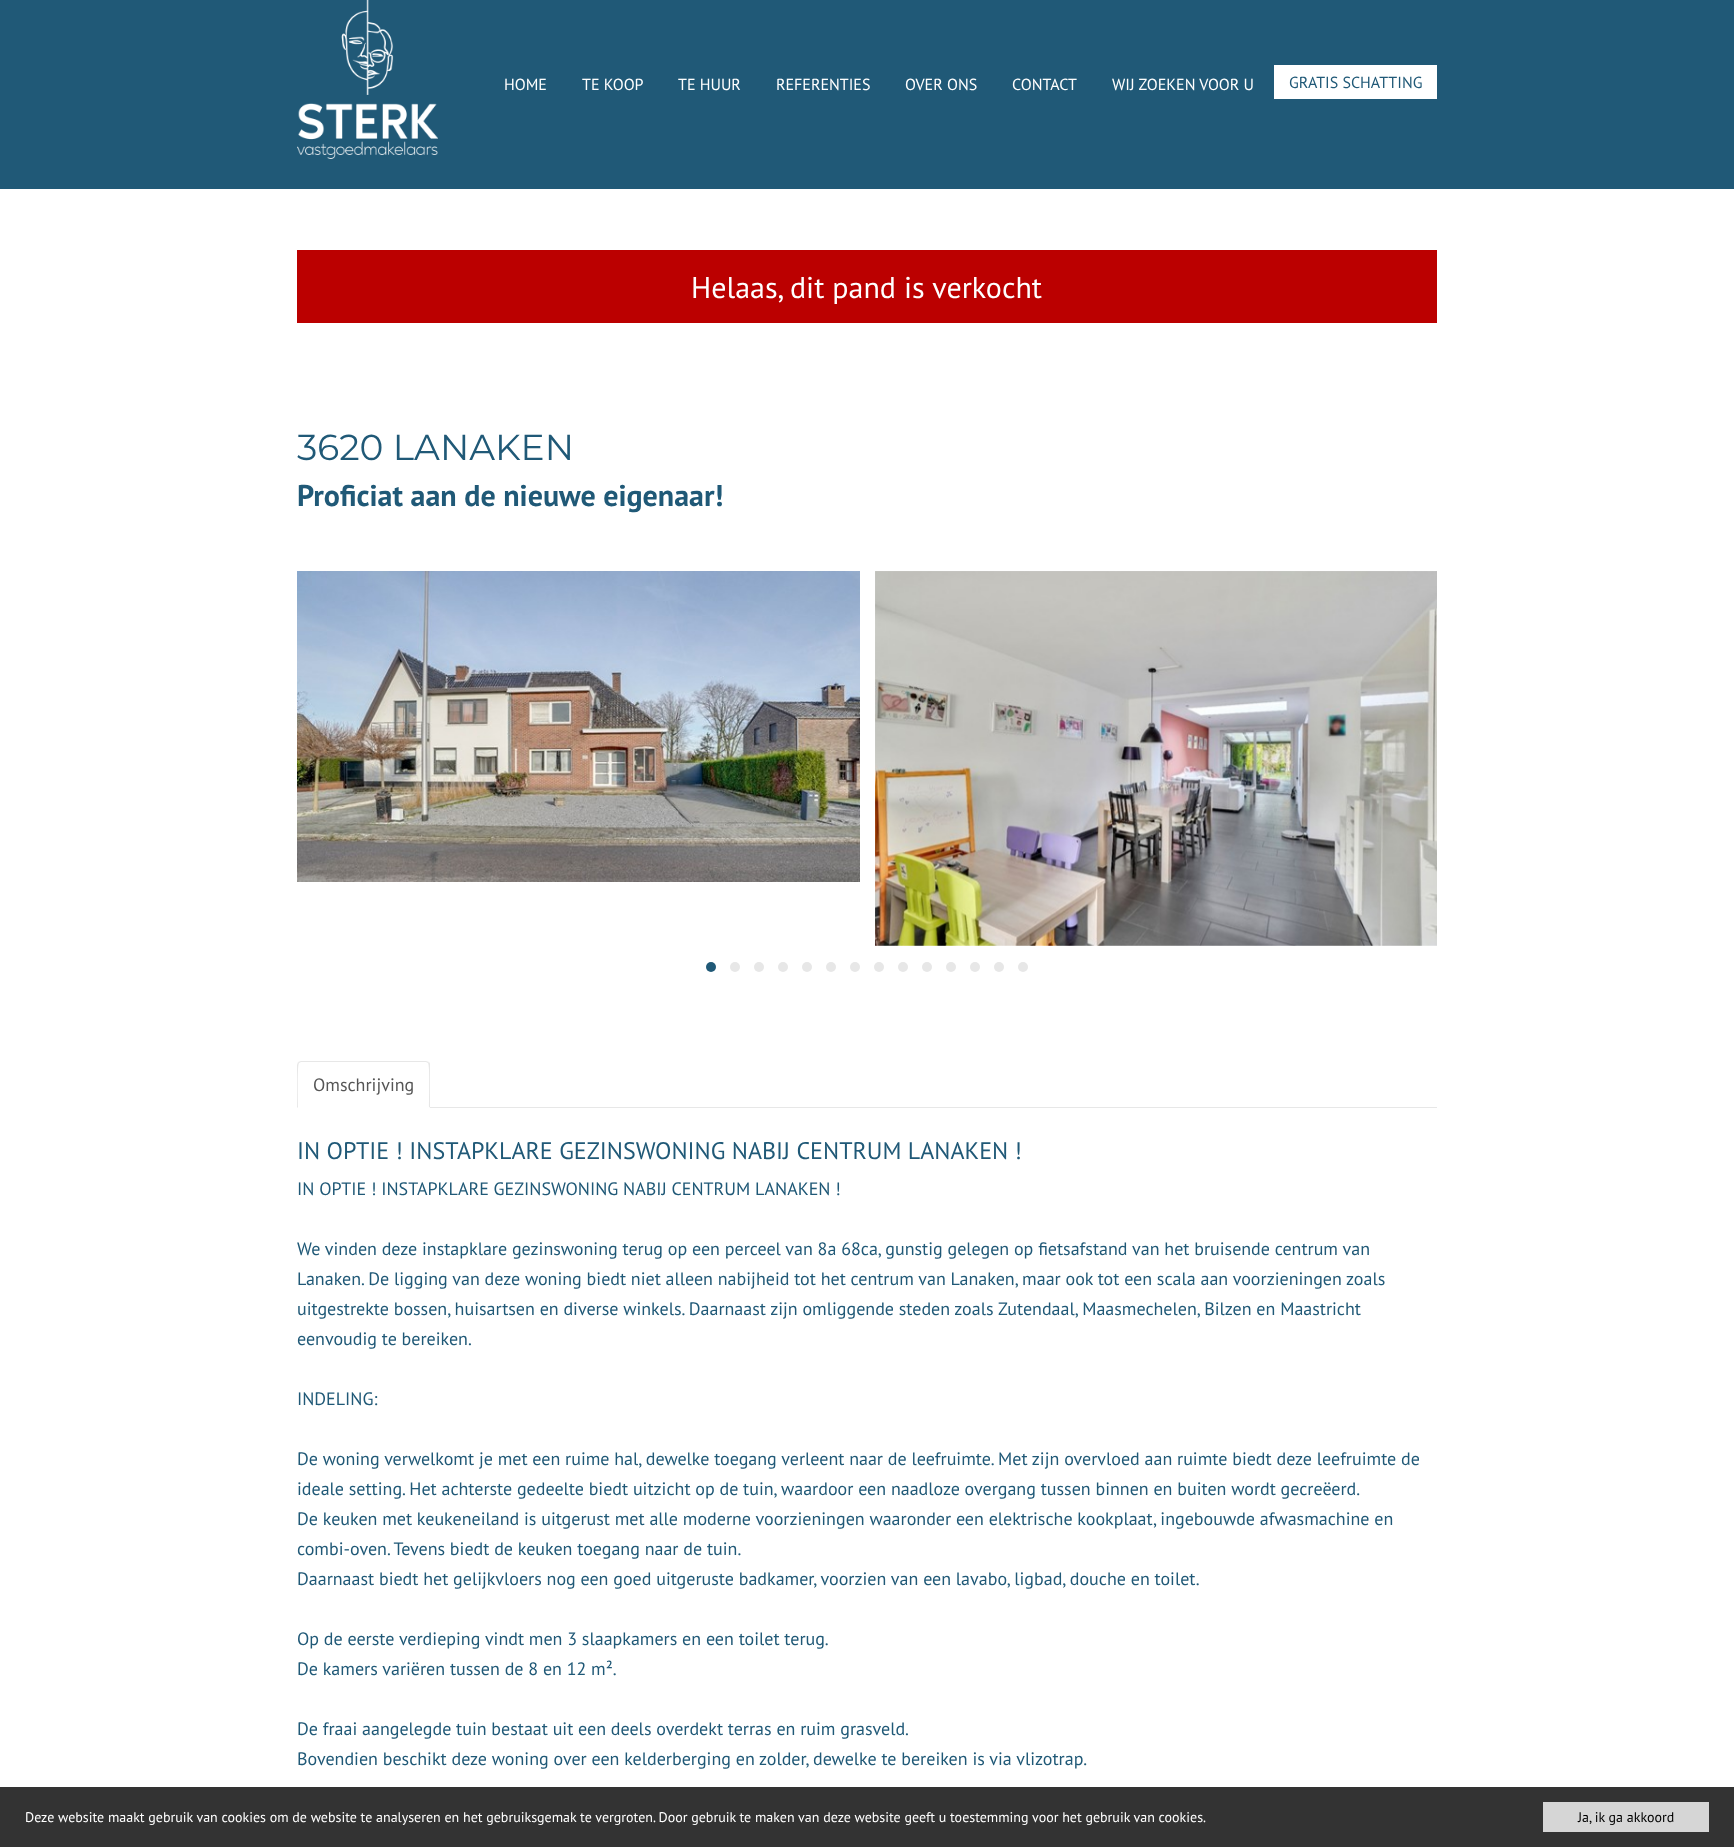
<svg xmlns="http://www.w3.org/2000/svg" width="1734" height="1847">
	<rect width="100%" height="100%" fill="#FFFFFF" />
	<rect x="0" y="0" width="1734" height="189" fill="#205977" />
	<image x="297" y="0" width="141" height="159" href="assets/img1.png" />
	<g font-family="PT Sans" font-size="16" fill="#FFFFFF">
		<text x="504" y="90">HOME</text>
		<text x="582" y="90">TE KOOP</text>
		<text x="678" y="90">TE HUUR</text>
		<text x="776" y="90">REFERENTIES</text>
		<text x="905" y="90">OVER ONS</text>
		<text x="1012" y="90">CONTACT</text>
		<text x="1112" y="90">WIJ ZOEKEN VOOR U</text>
	</g>
	<rect x="1274" y="65" width="163" height="34" fill="#FFFFFF" />
	<text x="1289" y="88" font-family="PT Sans" font-size="16" fill="#205977">GRATIS SCHATTING</text>
	<rect x="297" y="250" width="1140" height="73" fill="#BB0000" />
	<text x="691" y="298" font-family="PT Sans" font-size="30" fill="#FFFFFF">Helaas, dit pand is verkocht</text>
	<text x="297" y="460" font-family="Montserrat" font-size="36" fill="#205977">3620 LANAKEN</text>
	<text x="297" y="506" font-family="PT Sans" font-size="30" font-weight="700" fill="#205977">Proficiat aan de nieuwe eigenaar!</text>
	<image x="297" y="571" width="563" height="311" href="assets/img2.png" />
	<image x="875" y="571" width="562" height="375" href="assets/img3.png" />
	<circle cx="711" cy="967" r="5" fill="#205977" />
	<circle cx="735" cy="967" r="5" fill="#E7E7E7" />
	<circle cx="759" cy="967" r="5" fill="#E7E7E7" />
	<circle cx="783" cy="967" r="5" fill="#E7E7E7" />
	<circle cx="807" cy="967" r="5" fill="#E7E7E7" />
	<circle cx="831" cy="967" r="5" fill="#E7E7E7" />
	<circle cx="855" cy="967" r="5" fill="#E7E7E7" />
	<circle cx="879" cy="967" r="5" fill="#E7E7E7" />
	<circle cx="903" cy="967" r="5" fill="#E7E7E7" />
	<circle cx="927" cy="967" r="5" fill="#E7E7E7" />
	<circle cx="951" cy="967" r="5" fill="#E7E7E7" />
	<circle cx="975" cy="967" r="5" fill="#E7E7E7" />
	<circle cx="999" cy="967" r="5" fill="#E7E7E7" />
	<circle cx="1023" cy="967" r="5" fill="#E7E7E7" />
	<rect x="430" y="1107" width="1007" height="1" fill="#E7E7E7" />
	<path d="M301 1061L298 1062L299 1063L301 1062H426L428 1063L429 1062L426 1061Z" fill="#E7E7E7" />
	<path d="M430 1108V1065C430 1064 430 1063 429 1062L428 1063C430 1065 429 1102 429 1107Z" fill="#E7E7E7" />
	<path d="M430 1108L429 1107H298L297 1108Z" fill="#FFFFFF" />
	<path d="M297 1108L298 1107C298 1102 297 1065 299 1063L298 1062L297 1065Z" fill="#E7E7E7" />
	<text x="313" y="1091" font-family="PT Sans" font-size="18" fill="#555555">Omschrijving</text>
	<text x="297" y="1159" font-family="PT Sans" font-size="24" fill="#205977">IN OPTIE ! INSTAPKLARE GEZINSWONING NABIJ CENTRUM LANAKEN !</text>
	<g font-family="PT Sans" font-size="18" fill="#205977">
		<text x="297" y="1195">IN OPTIE ! INSTAPKLARE GEZINSWONING NABIJ CENTRUM LANAKEN !</text>
		<text x="297" y="1255">We vinden deze instapklare gezinswoning terug op een perceel van 8a 68ca, gunstig gelegen op fietsafstand van het bruisende centrum van</text>
		<text x="297" y="1285">Lanaken. De ligging van deze woning biedt niet alleen nabijheid tot het centrum van Lanaken, maar ook tot een scala aan voorzieningen zoals</text>
		<text x="297" y="1315">uitgestrekte bossen, huisartsen en diverse winkels. Daarnaast zijn omliggende steden zoals Zutendaal, Maasmechelen, Bilzen en Maastricht</text>
		<text x="297" y="1345">eenvoudig te bereiken.</text>
		<text x="297" y="1405">INDELING:</text>
		<text x="297" y="1465">De woning verwelkomt je met een ruime hal, dewelke toegang verleent naar de leefruimte. Met zijn overvloed aan ruimte biedt deze leefruimte de</text>
		<text x="297" y="1495">ideale setting. Het achterste gedeelte biedt uitzicht op de tuin, waardoor een naadloze overgang tussen binnen en buiten wordt gecreëerd.</text>
		<text x="297" y="1525">De keuken met keukeneiland is uitgerust met alle moderne voorzieningen waaronder een elektrische kookplaat, ingebouwde afwasmachine en</text>
		<text x="297" y="1555">combi-oven. Tevens biedt de keuken toegang naar de tuin.</text>
		<text x="297" y="1585">Daarnaast biedt het gelijkvloers nog een goed uitgeruste badkamer, voorzien van een lavabo, ligbad, douche en toilet.</text>
		<text x="297" y="1645">Op de eerste verdieping vindt men 3 slaapkamers en een toilet terug.</text>
		<text x="297" y="1675">De kamers variëren tussen de 8 en 12 m².</text>
		<text x="297" y="1735">De fraai aangelegde tuin bestaat uit een deels overdekt terras en ruim grasveld.</text>
		<text x="297" y="1765">Bovendien beschikt deze woning over een kelderberging en zolder, dewelke te bereiken is via vlizotrap.</text>
	</g>
	<rect x="0" y="1787" width="1734" height="60" fill="#000000" fill-opacity="0.8" />
	<text x="25" y="1822" font-family="PT Sans" font-size="14" fill="#FFFFFF">Deze website maakt gebruik van cookies om de website te analyseren en het gebruiksgemak te vergroten. Door gebruik te maken van deze website geeft u toestemming voor het gebruik van cookies.</text>
	<rect x="1543" y="1802" width="166" height="30" fill="#D6D6D6" />
	<text x="1578" y="1822" font-family="PT Sans" font-size="14" fill="#000000">Ja, ik ga akkoord</text>
</svg>
